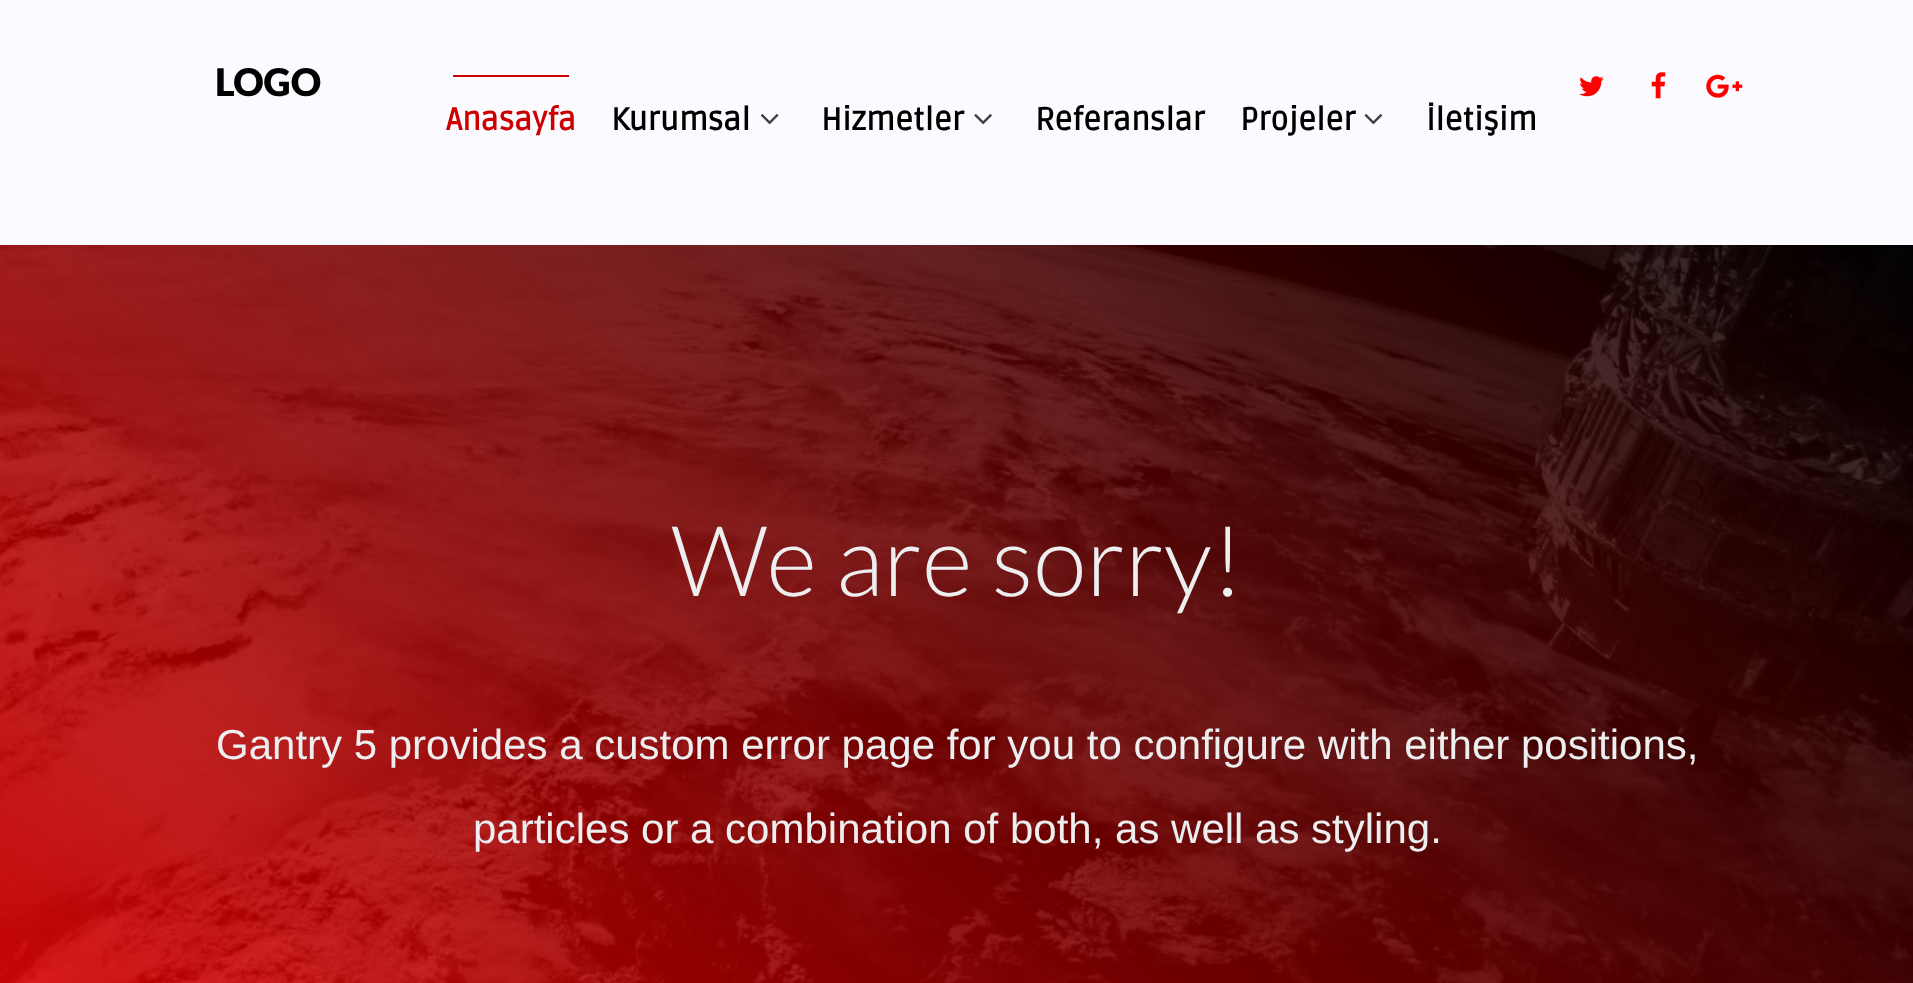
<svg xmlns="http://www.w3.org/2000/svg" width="1913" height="983">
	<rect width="100%" height="100%" fill="#FFFFFF" />
	<rect x="0" y="0" width="1913" height="245" fill="#FBFAFF" />
	<text x="215" y="96" font-family="Lato" font-size="38" font-weight="900" fill="#000000">LOGO</text>
	<image x="1579" y="76" width="25" height="21" href="assets/img1.png" />
	<image x="1651" y="72" width="15" height="27" href="assets/img2.png" />
	<image x="1706" y="74" width="37" height="24" href="assets/img3.png" />
	<rect x="453" y="75" width="116" height="2" fill="#CC0000" />
	<text x="446" y="130" font-family="Ruda" font-size="31.5" font-weight="700" fill="#CC0000">Anasayfa</text>
	<text x="611" y="130" font-family="Ruda" font-size="31.5" font-weight="700" fill="#000000">Kurumsal</text>
	<image x="760" y="114" width="19" height="11" href="assets/img4.png" />
	<text x="821" y="130" font-family="Ruda" font-size="31.5" font-weight="700" fill="#000000">Hizmetler</text>
	<image x="974" y="114" width="18" height="11" href="assets/img5.png" />
	<g font-family="Ruda" font-size="31.5" font-weight="700" fill="#000000">
		<text x="1035" y="130">Referanslar</text>
		<text x="1240" y="130">Projeler</text>
	</g>
	<image x="1364" y="114" width="19" height="11" href="assets/img6.png" />
	<text x="1426" y="130" font-family="Ruda" font-size="31.5" font-weight="700" fill="#000000">İletişim</text>
	<image x="0" y="245" width="1913" height="738" href="assets/img7.png" />
	<text x="671" y="596" font-family="Lato" font-size="98" font-weight="300" fill="#ECEEEF">We are sorry!</text>
	<g font-family="Liberation Sans" font-size="42" fill="#ECEEEF">
		<text x="216" y="759">Gantry 5 provides a custom error page for you to configure with either positions,</text>
		<text x="473" y="843">particles or a combination of both, as well as styling.</text>
	</g>
</svg>
